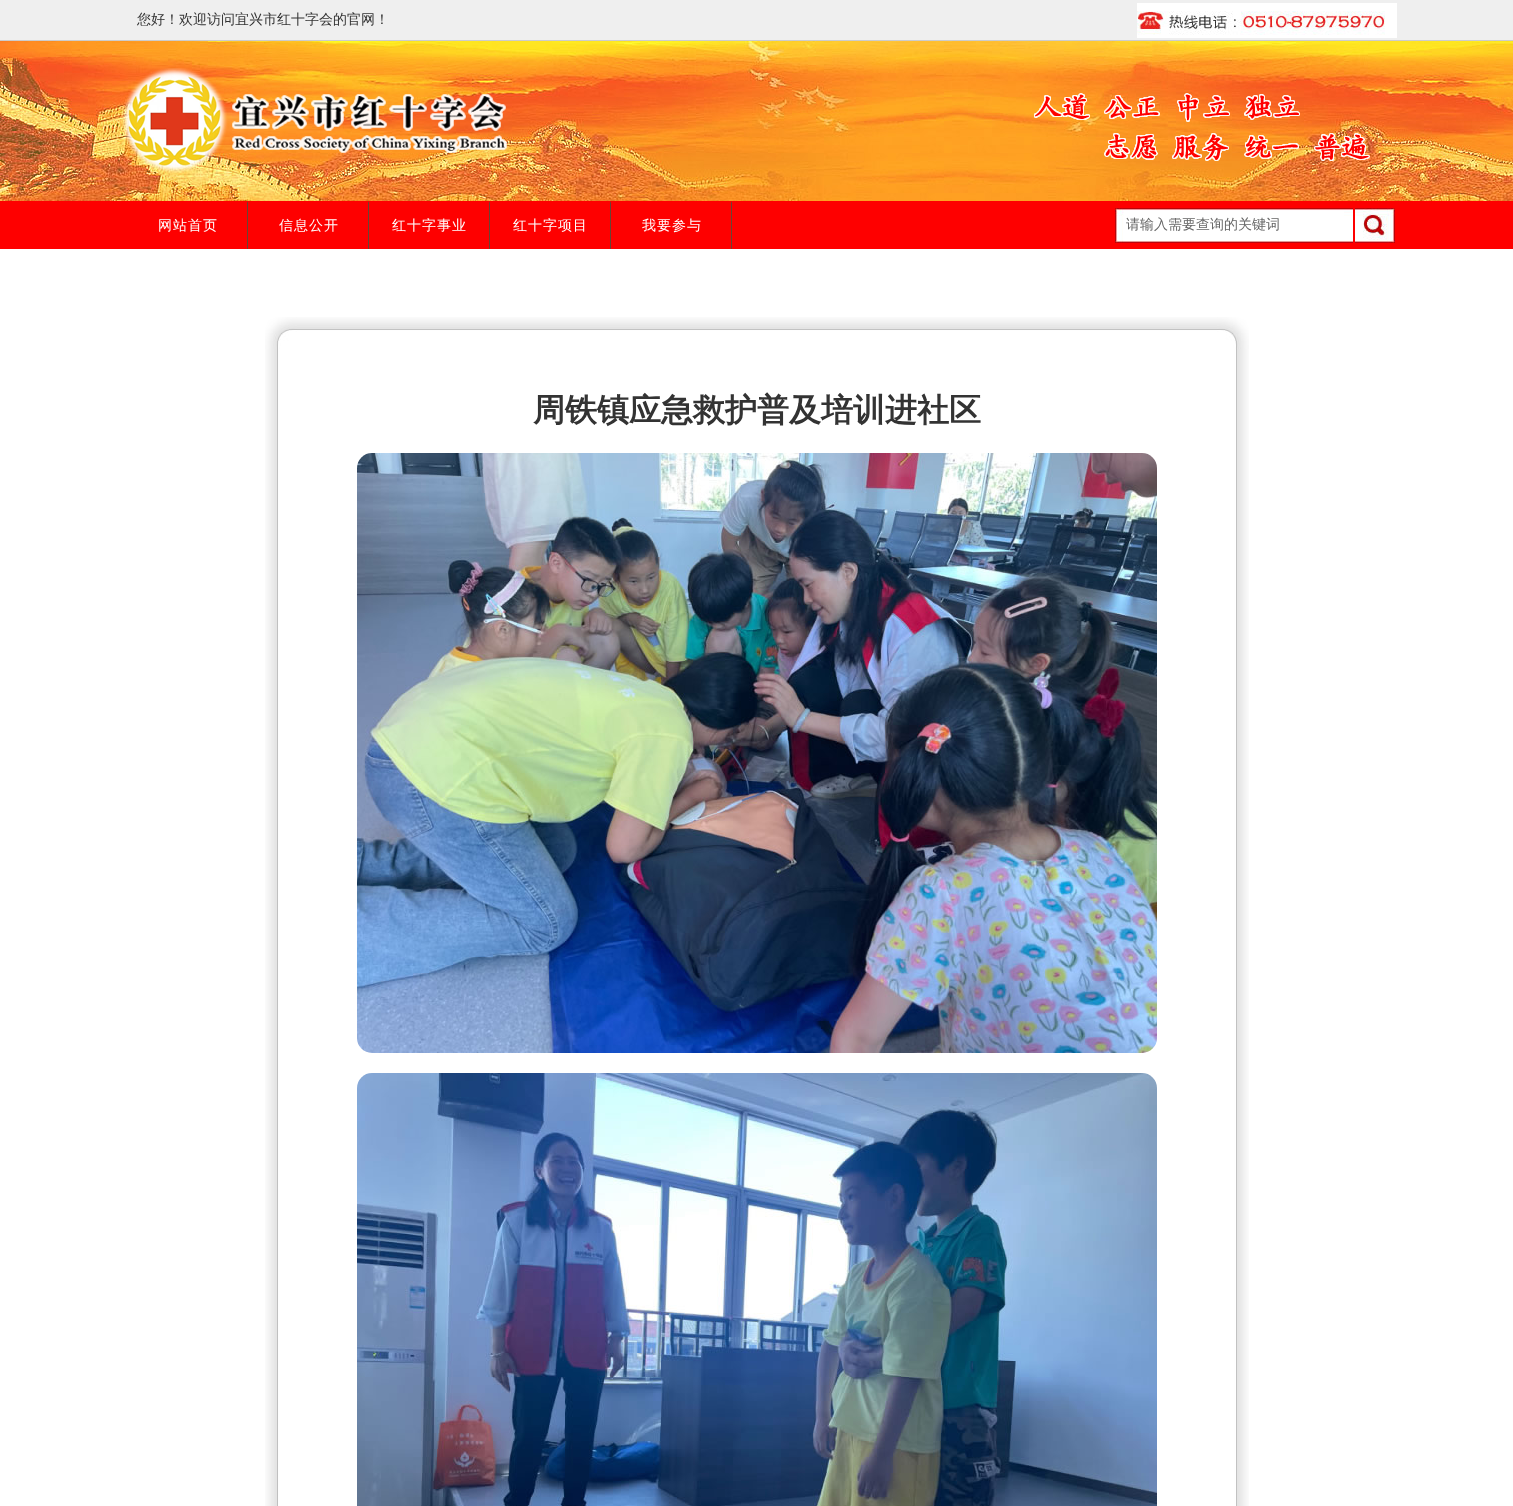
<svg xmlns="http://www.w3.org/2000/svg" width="1513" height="1506">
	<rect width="100%" height="100%" fill="#FFFFFF" />
	<rect x="0" y="0" width="1513" height="40" fill="#EFEFEF" />
	<rect x="0" y="40" width="1513" height="1" fill="#CCCCCC" />
	<text x="137" y="24" font-family="WenQuanYi Zen Hei" font-size="14" font-weight="500" fill="#333333">您好！欢迎访问宜兴市红十字会的官网！</text>
	<image x="1137" y="3" width="260" height="35" href="assets/img1.png" />
	<image x="0" y="41" width="1513" height="160" href="assets/img2.png" />
	<image x="122" y="68" width="385" height="105" href="assets/img3.png" />
	<image x="1034" y="93" width="336" height="68" href="assets/img4.png" />
	<rect x="0" y="201" width="1513" height="48" fill="#FE0000" />
	<path d="M248 201V249H247V203Z" fill="#664536" />
	<text x="158" y="230" font-family="WenQuanYi Zen Hei" font-size="14" font-weight="500" letter-spacing="1" fill="#FFFFFF">网站首页</text>
	<path d="M369 201V249H368V203Z" fill="#664536" />
	<text x="279" y="230" font-family="WenQuanYi Zen Hei" font-size="14" font-weight="500" letter-spacing="1" fill="#FFFFFF">信息公开</text>
	<path d="M490 201V249H489V203Z" fill="#664536" />
	<text x="392" y="230" font-family="WenQuanYi Zen Hei" font-size="14" font-weight="500" letter-spacing="1" fill="#FFFFFF">红十字事业</text>
	<path d="M611 201V249H610V203Z" fill="#664536" />
	<text x="513" y="230" font-family="WenQuanYi Zen Hei" font-size="14" font-weight="500" letter-spacing="1" fill="#FFFFFF">红十字项目</text>
	<path d="M732 201V249H731V203Z" fill="#664536" />
	<text x="642" y="230" font-family="WenQuanYi Zen Hei" font-size="14" font-weight="500" letter-spacing="1" fill="#FFFFFF">我要参与</text>
	<image x="1115" y="208" width="238" height="35" href="assets/img5.png" />
	<rect x="1124" y="211" width="220" height="30" fill="#FFFFFF" />
	<text x="1126" y="229" font-family="WenQuanYi Zen Hei" font-size="14" font-weight="500" fill="#666666">请输入需要查询的关键词</text>
	<image x="1355" y="208" width="40" height="35" href="assets/img6.png" />
	<image x="265" y="317" width="984" height="42" href="assets/img7.png" />
	<image x="265" y="359" width="984" height="1147" href="assets/img8.png" />
	<text x="533" y="421" font-family="WenQuanYi Zen Hei" font-size="32" font-weight="700" fill="#333333">周铁镇应急救护普及培训进社区</text>
	<image x="357" y="453" width="800" height="600" href="assets/img9.png" />
	<image x="357" y="1073" width="800" height="433" href="assets/img10.png" />
</svg>
